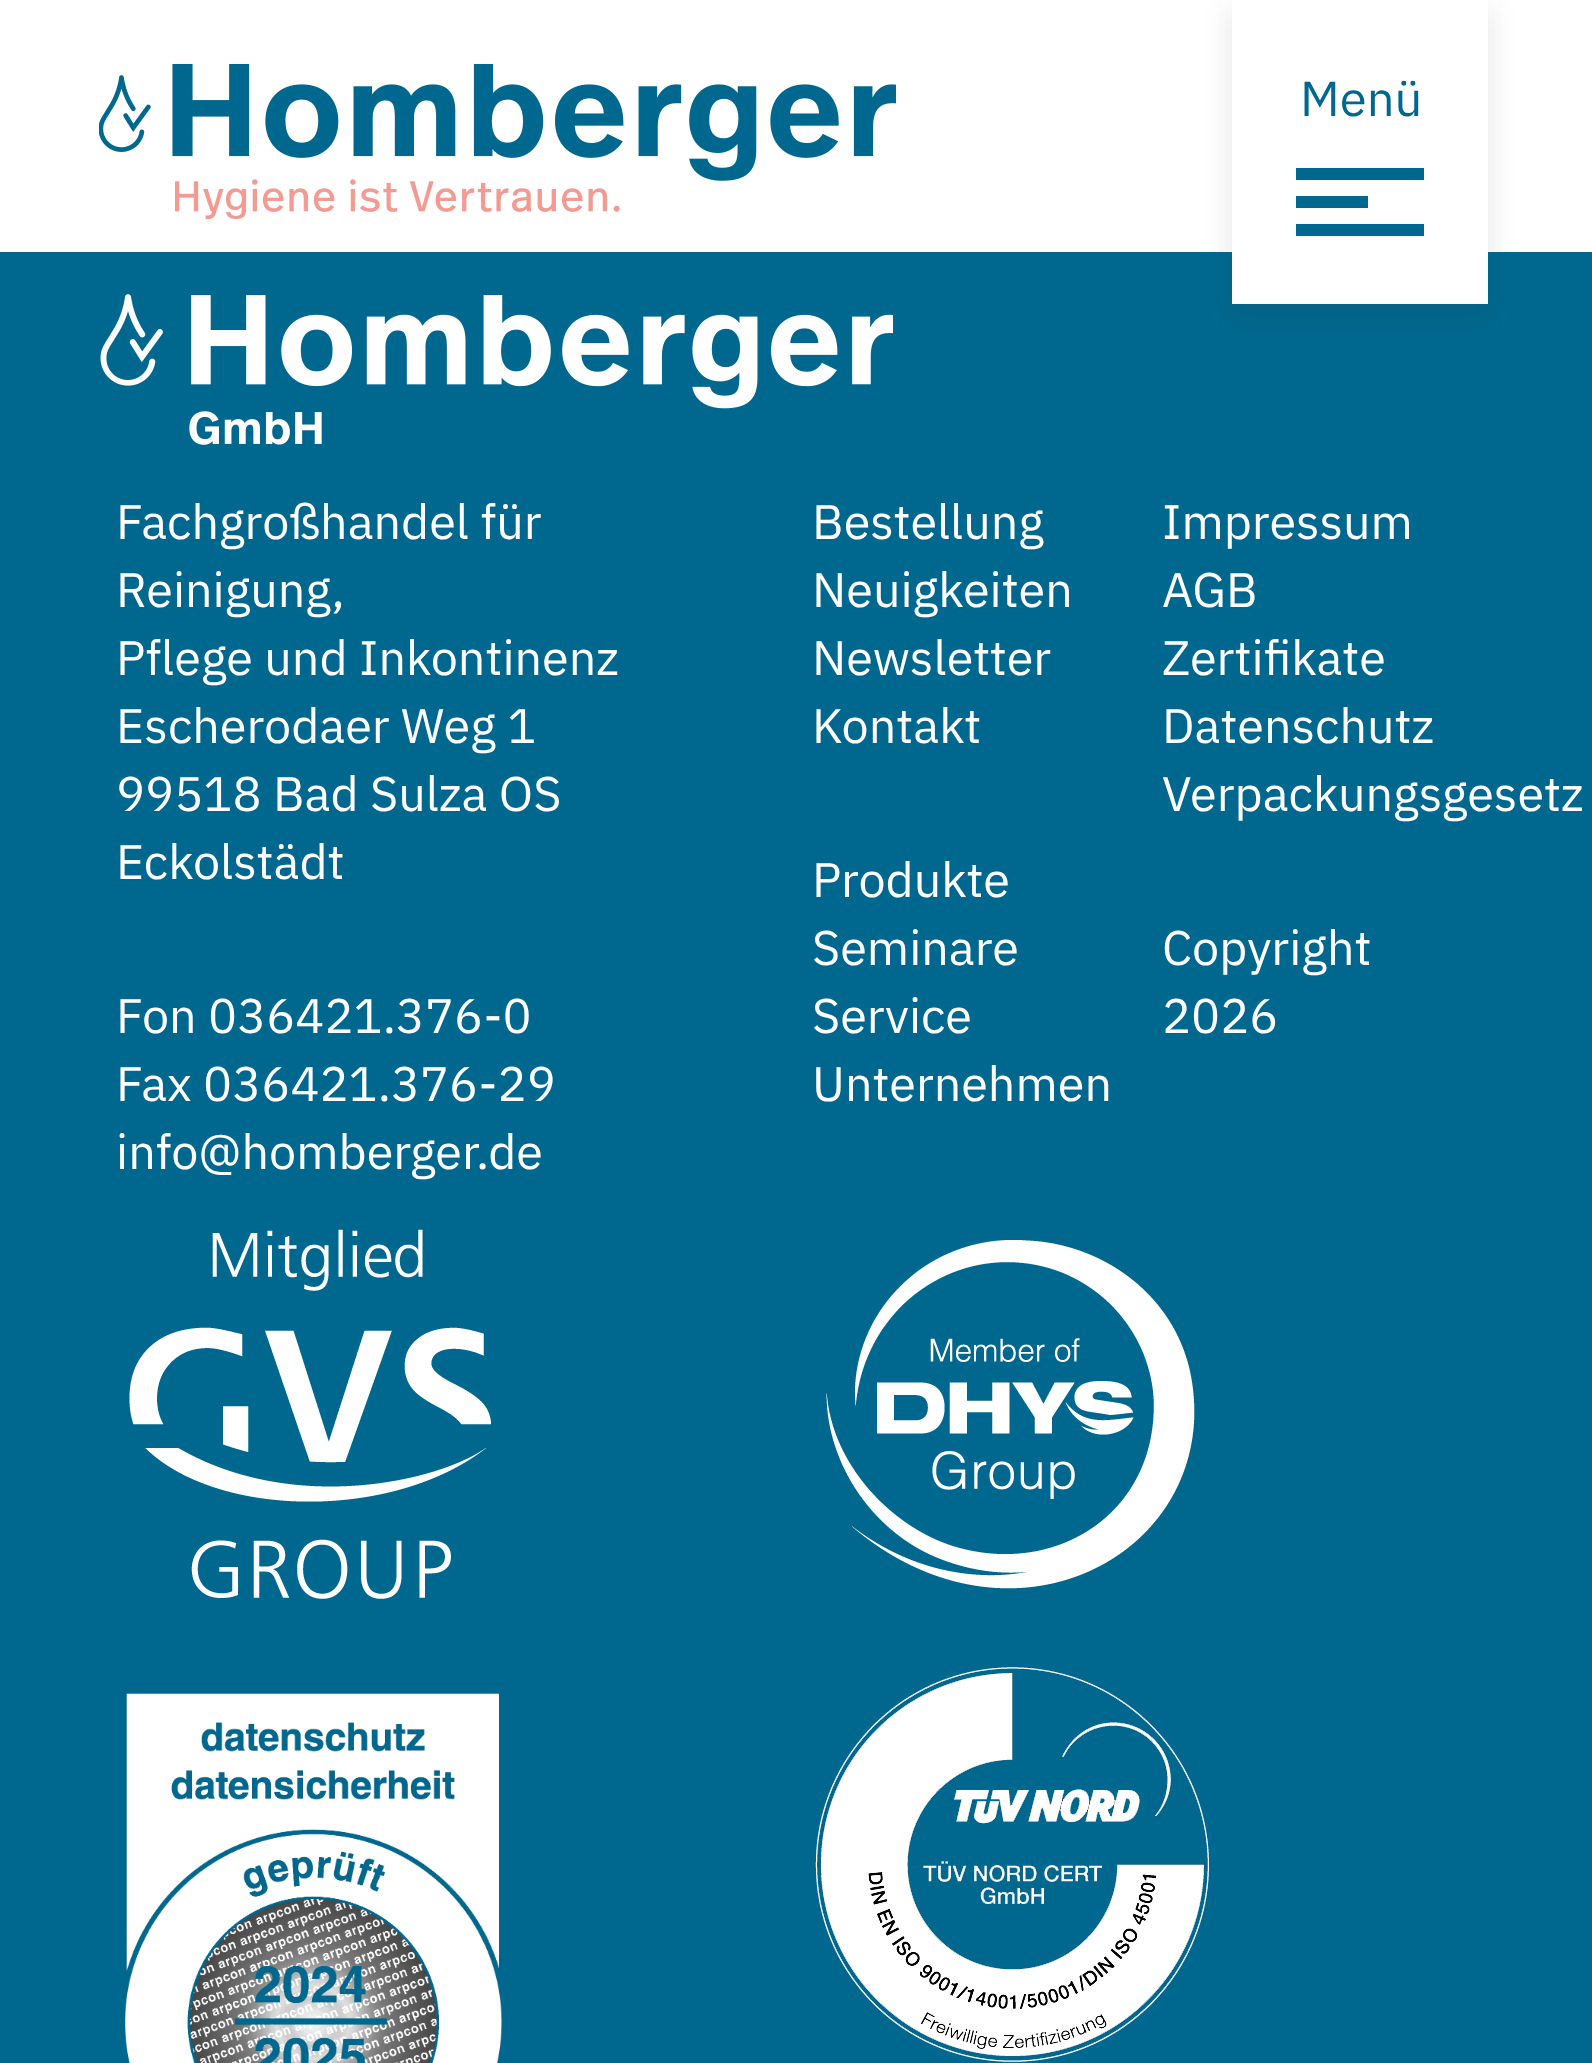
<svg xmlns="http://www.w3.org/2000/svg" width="1592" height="2063">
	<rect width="100%" height="100%" fill="#00688F" />
	<rect x="0" y="0" width="1592" height="252" fill="#FFFFFF" />
	<image x="99" y="64" width="797" height="155" href="assets/img1.png" />
	<rect x="1228" y="8" width="264" height="312" fill="#323232" fill-opacity="0.1" filter="blur(12px)" />
	<rect x="1232" y="0" width="256" height="304" fill="#FFFFFF" />
	<text x="1300" y="116" font-family="IBM Plex Sans" font-size="49" fill="#00688F">Menü</text>
	<rect x="1296" y="168" width="128" height="12" fill="#00688F" />
	<rect x="1296" y="196" width="72" height="12" fill="#00688F" />
	<rect x="1296" y="224" width="128" height="12" fill="#00688F" />
	<image x="100" y="294" width="793" height="151" href="assets/img2.png" />
	<g font-family="IBM Plex Sans" font-size="48.5" fill="#FFFFFF">
		<text x="116" y="539">Fachgroßhandel für</text>
		<text x="116" y="607">Reinigung,</text>
		<text x="116" y="675">Pflege und Inkontinenz</text>
		<text x="116" y="743">Escherodaer Weg 1</text>
		<text x="116" y="811">99518 Bad Sulza OS</text>
		<text x="116" y="879">Eckolstädt</text>
		<text x="116" y="1033">Fon 036421.376-0</text>
		<text x="116" y="1101">Fax 036421.376-29</text>
		<text x="116" y="1169">info@homberger.de</text>
		<text x="812" y="539">Bestellung</text>
		<text x="812" y="607">Neuigkeiten</text>
		<text x="812" y="675">Newsletter</text>
		<text x="812" y="743">Kontakt</text>
		<text x="812" y="897">Produkte</text>
		<text x="812" y="965">Seminare</text>
		<text x="812" y="1033">Service</text>
		<text x="812" y="1101">Unternehmen</text>
		<text x="1162" y="539">Impressum</text>
		<text x="1162" y="607">AGB</text>
		<text x="1162" y="675">Zertifikate</text>
		<text x="1162" y="743">Datenschutz</text>
		<text x="1162" y="811">Verpackungsgesetz</text>
		<text x="1162" y="965">Copyright</text>
		<text x="1162" y="1033">2026</text>
	</g>
	<image x="129" y="1229" width="362" height="370" href="assets/img3.png" />
	<image x="826" y="1240" width="369" height="349" href="assets/img4.png" />
	<image x="125" y="1693" width="377" height="370" href="assets/img5.png" />
	<image x="815" y="1667" width="394" height="395" href="assets/img6.png" />
</svg>
